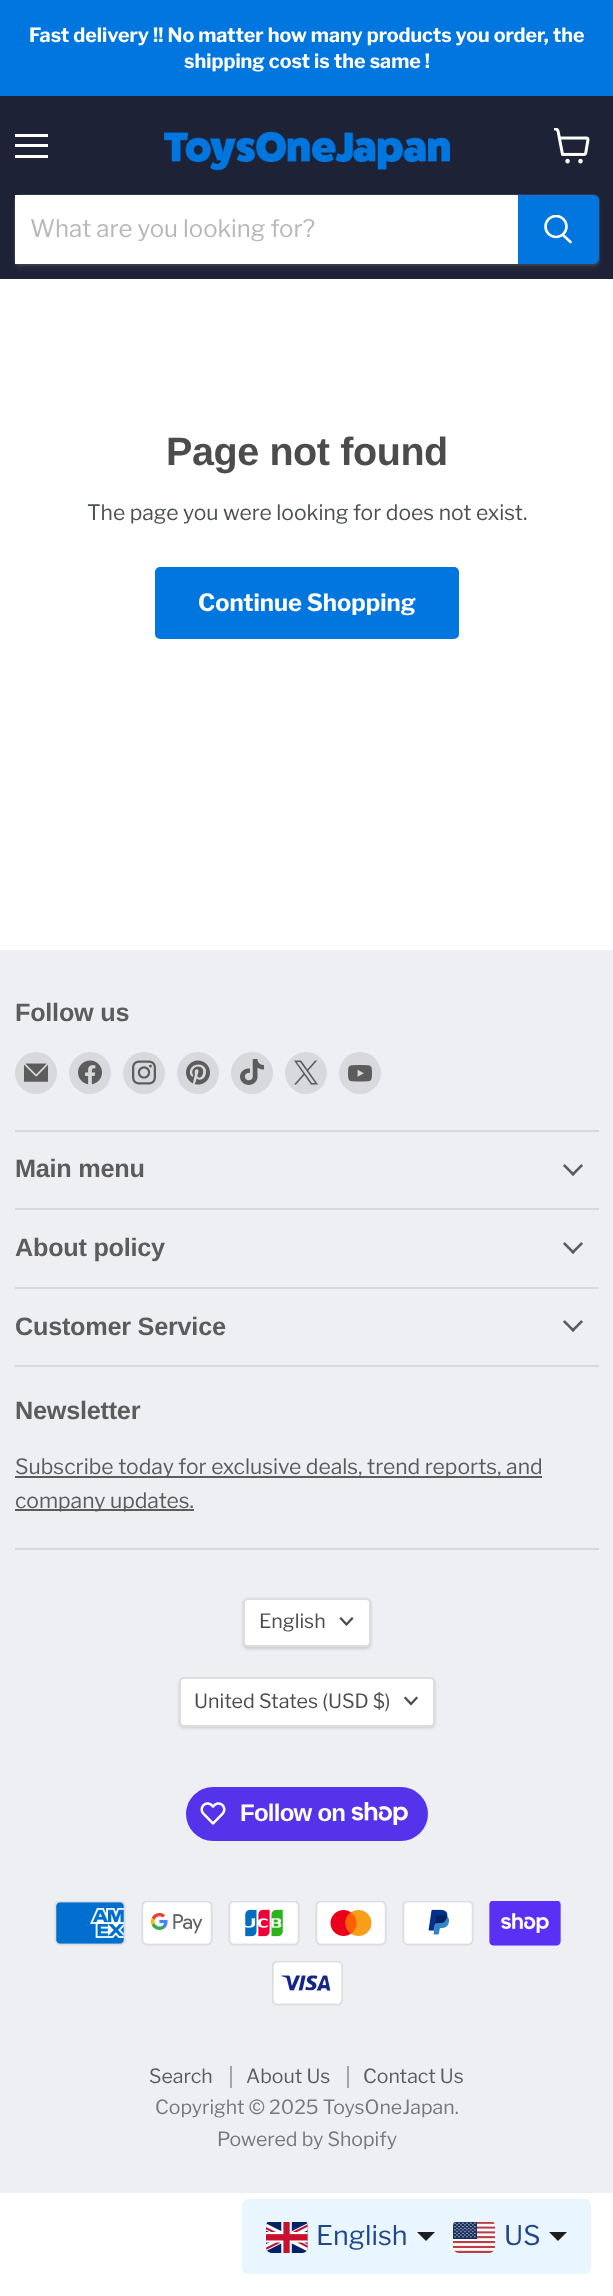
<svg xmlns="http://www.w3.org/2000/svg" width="613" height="2296">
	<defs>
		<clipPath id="clip1"><rect x="543" y="215" width="30" height="31" /></clipPath>
	</defs>
	<rect width="100%" height="100%" fill="#FFFFFF" />
	<rect x="0" y="0" width="613" height="96" fill="#0076DE" />
	<g font-family="Libre Franklin" font-size="19.7" font-weight="700" fill="#FFFFFF">
		<text x="29" y="42">Fast delivery !! No matter how many products you order, the</text>
		<text x="184" y="68">shipping cost is the same !</text>
	</g>
	<rect x="0" y="96" width="613" height="183" fill="#1D2236" />
	<rect x="15" y="134" width="33" height="3" fill="#FFFFFF" />
	<rect x="15" y="144" width="33" height="3" fill="#FFFFFF" />
	<rect x="15" y="155" width="33" height="3" fill="#FFFFFF" />
	<image x="554" y="128" width="36" height="36" href="assets/img1.png" />
	<image x="164" y="131" width="286" height="40" href="assets/img2.png" />
	<rect x="14" y="197" width="586" height="72" rx="6" fill="#808080" fill-opacity="0.11" filter="blur(2px)" />
	<rect x="15" y="195" width="584" height="70" rx="5" fill="none" stroke="#808080" stroke-opacity="0.2" stroke-width="2" />
	<rect x="15" y="195" width="503" height="69" fill="#FFFFFF" />
	<text x="30" y="237" font-family="Libre Franklin" font-size="24" fill="#B8B8B8">What are you looking for?</text>
	<path d="M519 196H594C596 196 598 198 598 200V259C598 261 596 263 594 263H519Z" fill="#0076DE" stroke="#0076DE" stroke-width="2" />
	<path d="M570.5 242L563 235" fill="none" stroke="#FFFFFF" stroke-width="2.6" stroke-linecap="round" />
	<g clip-path="url(#clip1)">
		<circle cx="556" cy="226.5" r="10.5" fill="none" stroke="#FFFFFF" stroke-width="2.6" />
	</g>
	<text x="166" y="465" font-family="Arimo" font-size="39.5" font-weight="700" letter-spacing="-0.4" fill="#4C4C4C">Page not found</text>
	<text x="87" y="520" font-family="Libre Franklin" font-size="21.1" fill="#4C5154">The page you were looking for does not exist.</text>
	<rect x="156" y="568" width="302" height="70" rx="4" fill="#0076DE" stroke="#0076DE" stroke-width="2" />
	<text x="198" y="611" font-family="Libre Franklin" font-size="23.75" font-weight="700" fill="#FFFFFF">Continue Shopping</text>
	<rect x="0" y="950" width="613" height="1243" fill="#EDEFF3" />
	<rect x="15" y="1130" width="584" height="2" fill="#D7D9DC" />
	<text x="15" y="1021" font-family="Arimo" font-size="25.25" font-weight="700" letter-spacing="-0.25" fill="#5C5C5C">Follow us</text>
	<circle cx="36" cy="1073" r="21" fill="#D7D9DC" />
	<image x="24" y="1063" width="24" height="19" href="assets/img3.png" />
	<circle cx="90" cy="1073" r="21" fill="#D7D9DC" />
	<image x="78" y="1060" width="24" height="25" href="assets/img4.png" />
	<circle cx="144" cy="1073" r="21" fill="#D7D9DC" />
	<image x="132" y="1060" width="24" height="25" href="assets/img5.png" />
	<circle cx="198" cy="1073" r="21" fill="#D7D9DC" />
	<image x="186" y="1060" width="24" height="25" href="assets/img6.png" />
	<circle cx="252" cy="1073" r="21" fill="#D7D9DC" />
	<image x="240" y="1059" width="24" height="26" href="assets/img7.png" />
	<circle cx="306" cy="1073" r="21" fill="#D7D9DC" />
	<image x="294" y="1060" width="24" height="25" href="assets/img8.png" />
	<circle cx="360" cy="1073" r="21" fill="#D7D9DC" />
	<image x="348" y="1065" width="24" height="17" href="assets/img9.png" />
	<rect x="15" y="1208" width="584" height="2" fill="#D7D9DC" />
	<text x="15" y="1177" font-family="Arimo" font-size="25.25" font-weight="700" letter-spacing="-0.25" fill="#5C5C5C">Main menu</text>
	<image x="563" y="1164" width="20" height="12" href="assets/img10.png" />
	<rect x="15" y="1287" width="584" height="2" fill="#D7D9DC" />
	<text x="15" y="1256" font-family="Arimo" font-size="25.25" font-weight="700" letter-spacing="-0.25" fill="#5C5C5C">About policy</text>
	<image x="563" y="1242" width="20" height="12" href="assets/img10.png" />
	<rect x="15" y="1365" width="584" height="2" fill="#D7D9DC" />
	<text x="15" y="1335" font-family="Arimo" font-size="25.25" font-weight="700" letter-spacing="-0.25" fill="#5C5C5C">Customer Service</text>
	<image x="563" y="1320" width="20" height="12" href="assets/img10.png" />
	<rect x="15" y="1548" width="584" height="2" fill="#D7D9DC" />
	<text x="15" y="1419" font-family="Arimo" font-size="25.25" font-weight="700" letter-spacing="-0.25" fill="#5C5C5C">Newsletter</text>
	<rect x="15" y="1476" width="527" height="2" fill="#5C5C5C" />
	<text x="15" y="1474" font-family="Libre Franklin" font-size="21.1" fill="#5C5C5C">Subscribe today for exclusive deals, trend reports, and</text>
	<rect x="15" y="1509" width="179" height="2" fill="#5C5C5C" />
	<text x="15" y="1508" font-family="Libre Franklin" font-size="21.1" fill="#5C5C5C">company updates.</text>
	<rect x="243" y="1599" width="128" height="50" rx="5" fill="#000000" fill-opacity="0.15" filter="blur(1.5px)" />
	<rect x="244" y="1599" width="126" height="47" rx="4" fill="#FFFFFF" stroke="#DDDDDD" stroke-width="2" />
	<text x="259" y="1628" font-family="Libre Franklin" font-size="19.7" fill="#4C4C4C">English</text>
	<path d="M346.5 1624.5L352 1618.5M346.5 1624.5L341 1618.5" fill="none" stroke="#4D4D4D" stroke-width="2.3" stroke-linecap="square" />
	<rect x="179" y="1679" width="256" height="49" rx="5" fill="#000000" fill-opacity="0.15" filter="blur(1.5px)" />
	<rect x="180" y="1678" width="254" height="48" rx="4" fill="#FFFFFF" stroke="#DDDDDD" stroke-width="2" />
	<text x="194" y="1708" font-family="Libre Franklin" font-size="19.7" fill="#4C4C4C">United States (USD $)</text>
	<path d="M411 1704L416.5 1698M411 1704L405.5 1698" fill="none" stroke="#4D4D4D" stroke-width="2.3" stroke-linecap="square" />
	<rect x="186" y="1787" width="242" height="54" rx="27" fill="#5433EB" />
	<image x="200" y="1802" width="26" height="23" href="assets/img11.png" />
	<text x="240" y="1821" font-family="Liberation Sans" font-size="24" font-weight="700" letter-spacing="-0.75" fill="#FFFFFF">Follow on</text>
	<image x="351" y="1802" width="57" height="23" href="assets/img12.png" />
	<image x="54" y="1901" width="72" height="45" href="assets/img13.png" />
	<image x="141" y="1901" width="72" height="45" href="assets/img14.png" />
	<image x="228" y="1901" width="72" height="45" href="assets/img15.png" />
	<image x="315" y="1901" width="72" height="45" href="assets/img16.png" />
	<image x="402" y="1901" width="72" height="45" href="assets/img17.png" />
	<image x="489" y="1901" width="72" height="45" href="assets/img18.png" />
	<image x="272" y="1961" width="71" height="45" href="assets/img19.png" />
	<rect x="230" y="2066" width="2" height="22" fill="#A5A6A8" />
	<text x="149" y="2083" font-family="Libre Franklin" font-size="19.5" fill="#5C5C5C">Search</text>
	<rect x="347" y="2066" width="2" height="22" fill="#A5A6A8" />
	<g font-family="Libre Franklin" font-size="19.5" fill="#5C5C5C">
		<text x="246" y="2083">About Us</text>
		<text x="363" y="2083">Contact Us</text>
	</g>
	<g font-family="Libre Franklin" font-size="19.5" fill="#79797A">
		<text x="155" y="2114">Copyright © 2025 ToysOneJapan.</text>
		<text x="217" y="2146">Powered by Shopify</text>
	</g>
	<rect x="242" y="2199" width="349" height="75" rx="6" fill="#EAF6FF" />
	<image x="266" y="2222" width="42" height="31" href="assets/img20.png" />
	<text x="316" y="2245" font-family="Libre Franklin" font-size="27" fill="#20468D">English</text>
	<path d="M417 2232H435L426 2241Z" fill="#1D1D1D" />
	<image x="453" y="2222" width="42" height="31" href="assets/img21.png" />
	<text x="504" y="2245" font-family="Libre Franklin" font-size="27" fill="#20468D">US</text>
	<path d="M549 2232H567L558 2241Z" fill="#1D1D1D" />
</svg>
